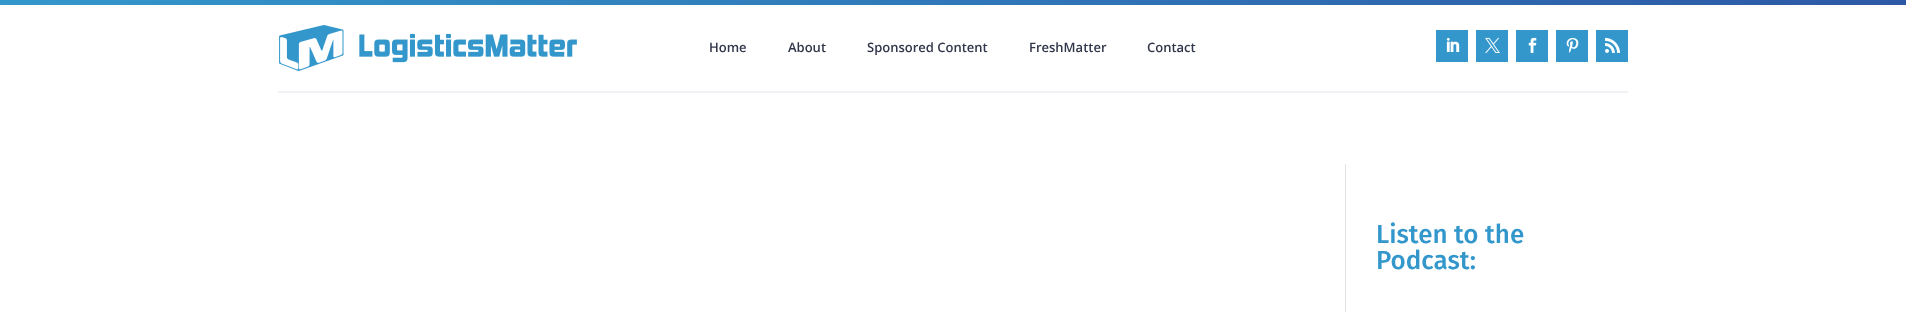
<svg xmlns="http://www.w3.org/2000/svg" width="1906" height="312">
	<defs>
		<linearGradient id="g1" gradientUnits="userSpaceOnUse" x1="638" y1="-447" x2="1268" y2="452"><stop offset="0" stop-color="#3397CC" /><stop offset="1" stop-color="#2D58A5" /></linearGradient>
	</defs>
	<rect width="100%" height="100%" fill="#FFFFFF" />
	<rect x="0" y="0" width="1906" height="5" fill="url(#g1)" />
	<rect x="278" y="91" width="1350" height="2" fill="#F1F2F6" />
	<image x="279" y="25" width="298" height="46" href="assets/img1.png" />
	<g font-family="Open Sans" font-size="13" font-weight="600" fill="#31364B">
		<text x="709" y="52">Home</text>
		<text x="788" y="52">About</text>
		<text x="867" y="52">Sponsored Content</text>
		<text x="1029" y="52">FreshMatter</text>
		<text x="1147" y="52">Contact</text>
	</g>
	<rect x="1436" y="30" width="32" height="32" fill="#3397CC" />
	<image x="1446" y="37" width="14" height="15" href="assets/img2.png" />
	<rect x="1476" y="30" width="32" height="32" fill="#3397CC" />
	<image x="1485" y="37" width="15" height="16" href="assets/img3.png" />
	<rect x="1516" y="30" width="32" height="32" fill="#3397CC" />
	<image x="1528" y="37" width="9" height="16" href="assets/img4.png" />
	<rect x="1556" y="30" width="32" height="32" fill="#3397CC" />
	<image x="1566" y="37" width="13" height="16" href="assets/img5.png" />
	<rect x="1596" y="30" width="32" height="32" fill="#3397CC" />
	<image x="1605" y="37" width="15" height="16" href="assets/img6.png" />
	<rect x="1345" y="164" width="1" height="148" fill="#E2E2E2" />
	<g font-family="Fira Sans" font-size="26" font-weight="500" fill="#3397CC">
		<text x="1376" y="243">Listen to the</text>
		<text x="1376" y="269">Podcast:</text>
	</g>
</svg>
